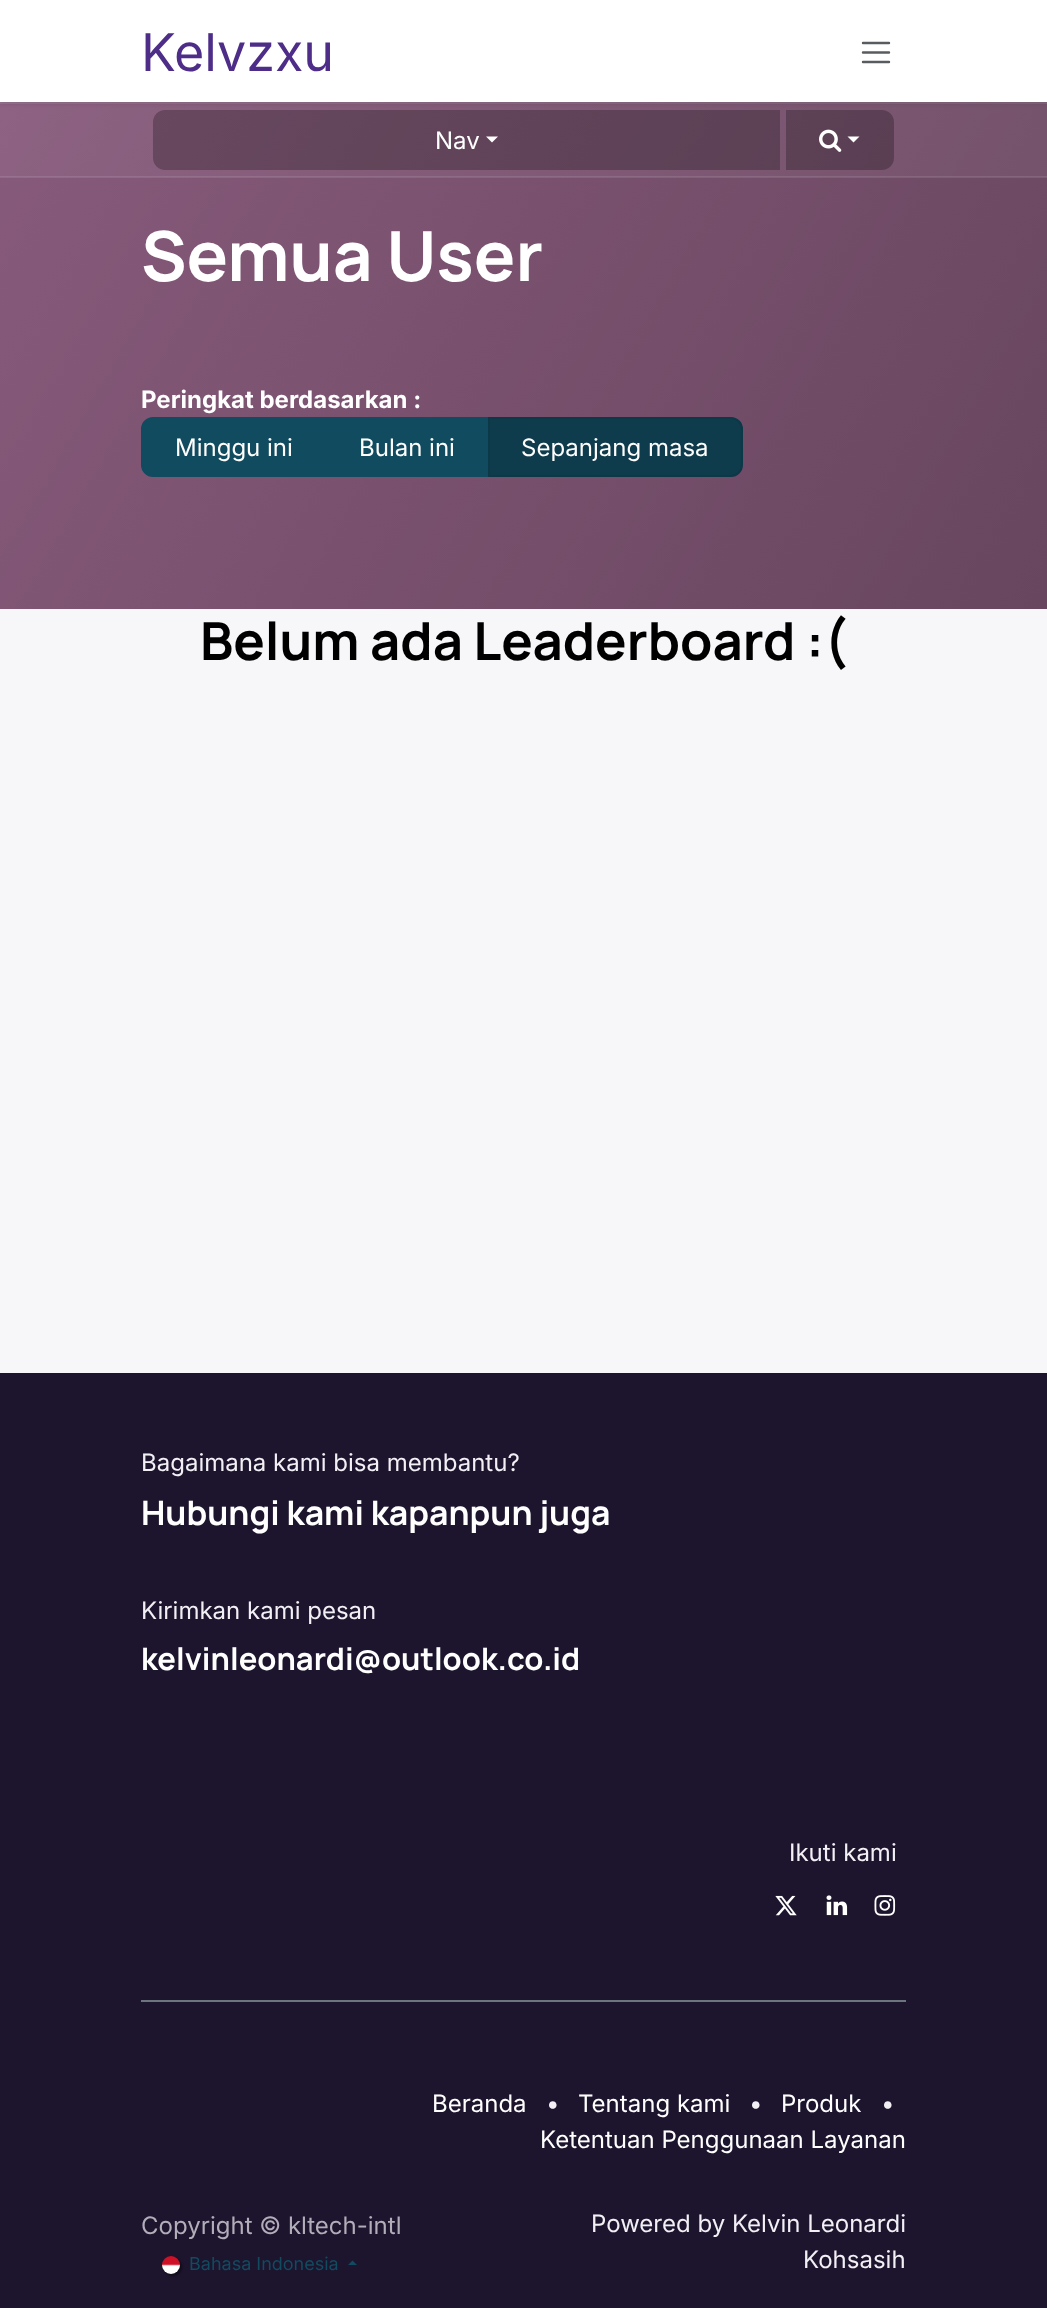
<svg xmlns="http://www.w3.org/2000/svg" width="1047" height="2308">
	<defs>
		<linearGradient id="g1" gradientUnits="userSpaceOnUse" x1="21" y1="65" x2="1026" y2="646"><stop offset="0" stop-color="#8D6282" /><stop offset="1" stop-color="#704F67" /></linearGradient>
		<linearGradient id="g2" gradientUnits="userSpaceOnUse" x1="21" y1="65" x2="1026" y2="646"><stop offset="0" stop-color="#98728F" /><stop offset="1" stop-color="#7E6176" /></linearGradient>
		<linearGradient id="g3" gradientUnits="userSpaceOnUse" x1="21" y1="65" x2="1026" y2="646"><stop offset="0" stop-color="#875A7B" /><stop offset="1" stop-color="#68465F" /></linearGradient>
		<linearGradient id="g4" gradientUnits="userSpaceOnUse" x1="21" y1="65" x2="1026" y2="646"><stop offset="0" stop-color="#936B88" /><stop offset="1" stop-color="#77596F" /></linearGradient>
	</defs>
	<rect width="100%" height="100%" fill="#F7F7FA" />
	<rect x="0" y="104" width="1047" height="72" fill="url(#g1)" />
	<rect x="0" y="102" width="1047" height="2" fill="url(#g2)" />
	<path d="M165 110H780V170H165C158.5 170 153 164.5 153 158V122C153 115.5 158.5 110 165 110Z" fill="#000000" fill-opacity="0.25" />
	<path d="M786 110H882C888.5 110 894 115.5 894 122V158C894 164.5 888.5 170 882 170H786Z" fill="#000000" fill-opacity="0.25" />
	<rect x="0" y="2" width="1047" height="102" fill="#000000" fill-opacity="0.1" filter="blur(2px)" />
	<rect x="0" y="0" width="1047" height="102" fill="#FFFFFF" />
	<text x="141" y="71" font-family="Inter" font-size="52" fill="#4E2D89">Kelvzxu</text>
	<path d="M863 43H889M863 52.5H889M863 62H889" fill="none" stroke="#595C5F" stroke-width="2.4" stroke-linecap="round" />
	<rect x="0" y="178" width="1047" height="431" fill="url(#g3)" />
	<rect x="0" y="177" width="1047" height="1" fill="url(#g4)" />
	<rect x="0" y="176" width="1047" height="1" fill="url(#g2)" />
	<text x="435" y="149" font-family="Inter" font-size="24" fill="#FFFFFF">Nav</text>
	<path d="M486 136.5H498L492 142.5Z" fill="#FFFFFF" />
	<image x="819" y="129" width="23" height="23" href="assets/img1.png" />
	<path d="M847.5 136.5H859.5L853.5 142.5Z" fill="#FFFFFF" />
	<text x="141" y="281" font-family="Manrope" font-size="69.25" font-weight="700" fill="#FFFFFF">Semua User</text>
	<text x="141" y="408" font-family="Inter" font-size="24" font-weight="700" fill="#FFFFFF">Peringkat berdasarkan :</text>
	<path d="M153 418H326V476H153C147 476 142 471 142 465V429C142 423 147 418 153 418Z" fill="#114B5F" stroke="#114B5F" stroke-width="2" />
	<text x="175" y="456" font-family="Inter" font-size="24" fill="#FFFFFF">Minggu ini</text>
	<rect x="327" y="417" width="161" height="60" fill="#114B5F" />
	<text x="359" y="456" font-family="Inter" font-size="24" fill="#FFFFFF">Bulan ini</text>
	<path d="M489 418H731C737 418 742 423 742 429V465C742 471 737 476 731 476H489Z" fill="#0E3C4C" stroke="#0D3847" stroke-width="2" />
	<text x="521" y="456" font-family="Inter" font-size="24" fill="#FFFFFF">Sepanjang masa</text>
	<text x="200" y="660" font-family="Manrope" font-size="52.5" font-weight="700" fill="#000000">Belum ada Leaderboard :(</text>
	<rect x="0" y="1373" width="1047" height="935" fill="#1D142E" />
	<text x="141" y="1471" font-family="Inter" font-size="24" fill="#F2F0F5">Bagaimana kami bisa membantu?</text>
	<text x="141" y="1525" font-family="Manrope" font-size="33.75" font-weight="700" fill="#FFFFFF">Hubungi kami kapanpun juga</text>
	<text x="141" y="1619" font-family="Inter" font-size="24" fill="#F2F0F5">Kirimkan kami pesan</text>
	<text x="141" y="1670" font-family="Manrope" font-size="31" font-weight="700" fill="#FFFFFF">kelvinleonardi@outlook.co.id</text>
	<text x="789" y="1861" font-family="Inter" font-size="24" fill="#F2F0F5">Ikuti kami</text>
	<image x="775" y="1895" width="22" height="21" href="assets/img2.png" />
	<image x="826" y="1895" width="22" height="21" href="assets/img3.png" />
	<image x="874" y="1895" width="22" height="21" href="assets/img4.png" />
	<rect x="141" y="2000" width="765" height="2" fill="#6C757D" />
	<text x="432" y="2112" font-family="Inter" font-size="24" fill="#FFFFFF">Beranda</text>
	<text x="546" y="2112" font-family="Inter" font-size="24" fill="#F2F0F5">•</text>
	<text x="578" y="2112" font-family="Inter" font-size="24" fill="#FFFFFF">Tentang kami</text>
	<text x="749" y="2112" font-family="Inter" font-size="24" fill="#F2F0F5">•</text>
	<text x="781" y="2112" font-family="Inter" font-size="24" fill="#FFFFFF">Produk</text>
	<text x="881" y="2112" font-family="Inter" font-size="24" fill="#F2F0F5">•</text>
	<text x="540" y="2148" font-family="Inter" font-size="24" fill="#FFFFFF">Ketentuan Penggunaan Layanan</text>
	<text x="141" y="2234" font-family="Inter" font-size="24" fill="#B2AEB9">Copyright © kltech-intl</text>
	<rect x="164" y="2258" width="18" height="18" rx="9" fill="#000000" fill-opacity="0.43" filter="blur(1px)" />
	<image x="162" y="2256" width="18" height="18" href="assets/img5.png" />
	<text x="189" y="2270" font-family="Inter" font-size="18" fill="#114B5F">Bahasa Indonesia</text>
	<path d="M357 2265H348L352.5 2260.5Z" fill="#114B5F" />
	<g font-family="Inter" font-size="24" fill="#F2F0F5">
		<text x="591" y="2232">Powered by Kelvin Leonardi</text>
		<text x="803" y="2268">Kohsasih</text>
	</g>
</svg>
